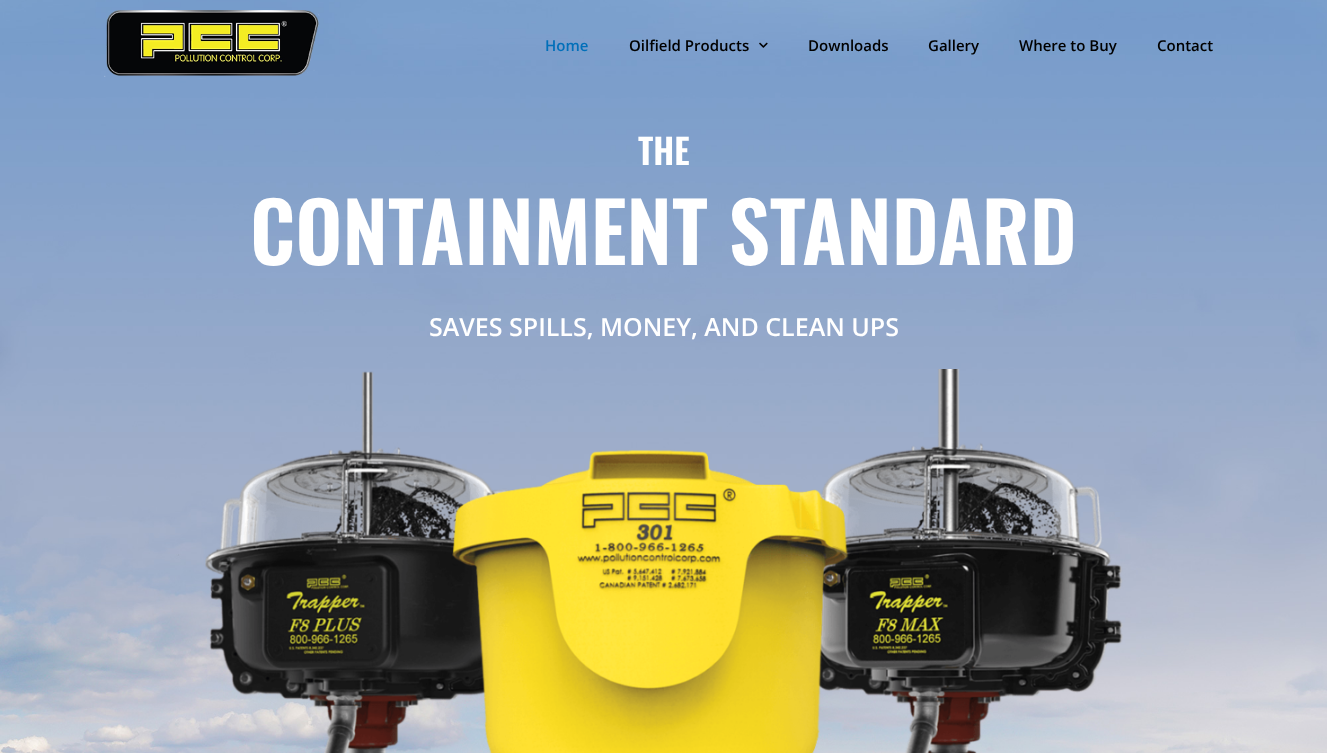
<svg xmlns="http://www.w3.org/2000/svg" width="1327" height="753">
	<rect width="100%" height="100%" fill="#FFFFFF" />
	<image x="0" y="0" width="1327" height="753" href="assets/img3.png" />
	<image x="104" y="10" width="216" height="69" href="assets/img1.png" />
	<text x="545" y="51" font-family="Open Sans" font-size="15" font-weight="600" fill="#006FB9">Home</text>
	<text x="629" y="51" font-family="Open Sans" font-size="15" font-weight="600" fill="#000000">Oilfield Products</text>
	<image x="759" y="42" width="9" height="6" href="assets/img2.png" />
	<g font-family="Open Sans" font-size="15" font-weight="600" fill="#000000">
		<text x="808" y="51">Downloads</text>
		<text x="928" y="51">Gallery</text>
		<text x="1019" y="51">Where to Buy</text>
		<text x="1157" y="51">Contact</text>
	</g>
	<text x="638" y="165" font-family="Oswald" font-size="35" font-weight="600" fill="#FFFFFF">THE</text>
	<text x="250" y="265" font-family="Oswald" font-size="82" font-weight="600" fill="#FFFFFF">CONTAINMENT STANDARD</text>
	<text x="429" y="336" font-family="Open Sans" font-size="25" font-weight="600" fill="#FFFFFF">SAVES SPILLS, MONEY, AND CLEAN UPS</text>
	<image x="205" y="369" width="918" height="384" href="assets/img4.png" />
</svg>
